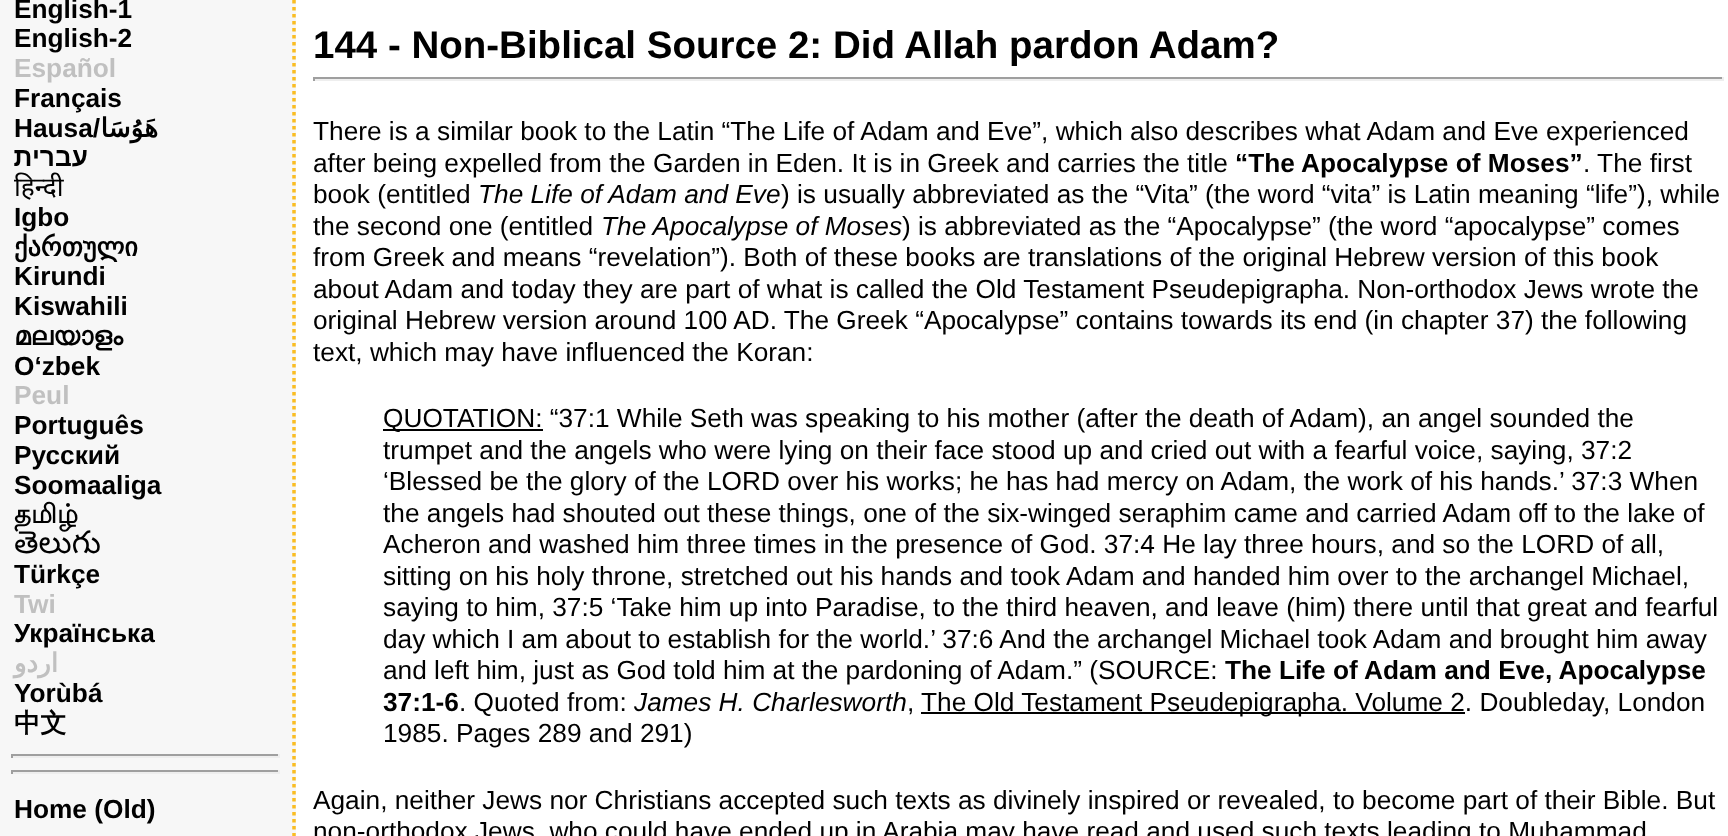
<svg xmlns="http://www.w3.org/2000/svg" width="1728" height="836">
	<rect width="100%" height="100%" fill="#F7F7F7" />
	<path d="M294-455V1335" fill="none" stroke="#FABD23" stroke-width="3.5" stroke-dasharray="3.5 3.5" />
	<g font-family="Liberation Sans" font-size="26.25" font-weight="700" fill="#000000">
		<text x="14" y="18">English-1</text>
		<text x="14" y="47">English-2</text>
	</g>
	<text x="14" y="77" font-family="Liberation Sans" font-size="26.25" font-weight="700" fill="#C0C0C0">Español</text>
	<g font-family="Liberation Sans" font-size="26.25" font-weight="700" fill="#000000">
		<text x="14" y="107">Français</text>
		<text x="14" y="137">Hausa/</text>
	</g>
	<text x="158" y="137" font-family="DejaVu Sans" font-size="26.25" font-weight="700" direction="rtl" fill="#000000">هَوُسَا</text>
	<text x="88" y="166" font-family="Liberation Sans" font-size="26.25" font-weight="700" direction="rtl" fill="#000000">עברית</text>
	<text x="14" y="196" font-family="Noto Sans" font-size="26.25" fill="#000000">हिन्दी</text>
	<text x="14" y="226" font-family="Liberation Sans" font-size="26.25" font-weight="700" fill="#000000">Igbo</text>
	<text x="14" y="256" font-family="DejaVu Sans" font-size="26.25" font-weight="700" fill="#000000">ქართული</text>
	<g font-family="Liberation Sans" font-size="26.25" font-weight="700" fill="#000000">
		<text x="14" y="285">Kirundi</text>
		<text x="14" y="315">Kiswahili</text>
	</g>
	<text x="14" y="345" font-family="FreeSans" font-size="26.25" font-weight="700" fill="#000000">മലയാളം</text>
	<text x="14" y="375" font-family="Liberation Sans" font-size="26.25" font-weight="700" fill="#000000">O‘zbek</text>
	<text x="14" y="404" font-family="Liberation Sans" font-size="26.25" font-weight="700" fill="#C0C0C0">Peul</text>
	<g font-family="Liberation Sans" font-size="26.25" font-weight="700" fill="#000000">
		<text x="14" y="434">Português</text>
		<text x="14" y="464">Русский</text>
		<text x="14" y="494">Soomaaliga</text>
	</g>
	<text x="14" y="523" font-family="Lohit Tamil" font-size="26.25" font-weight="700" fill="#000000">தமிழ்</text>
	<text x="14" y="553" font-family="Noto Sans Telugu" font-size="31.5" fill="#000000">తెలుగు</text>
	<text x="14" y="583" font-family="Liberation Sans" font-size="26.25" font-weight="700" fill="#000000">Türkçe</text>
	<text x="14" y="613" font-family="Liberation Sans" font-size="26.25" font-weight="700" fill="#C0C0C0">Twi</text>
	<text x="14" y="642" font-family="Liberation Sans" font-size="26.25" font-weight="700" fill="#000000">Українська</text>
	<text x="58" y="672" font-family="DejaVu Sans" font-size="26.25" font-weight="700" direction="rtl" fill="#C0C0C0">اردو</text>
	<text x="14" y="702" font-family="Liberation Sans" font-size="26.25" font-weight="700" fill="#000000">Yorùbá</text>
	<text x="14" y="732" font-family="WenQuanYi Zen Hei" font-size="26.25" font-weight="700" fill="#000000">中文</text>
	<rect x="11" y="754" width="269" height="2" fill="#9F9F9F" />
	<rect x="278" y="754" width="2" height="4" fill="#EEEEEE" />
	<rect x="11" y="756" width="269" height="2" fill="#EEEEEE" />
	<rect x="11" y="754" width="2" height="4" fill="#9F9F9F" />
	<rect x="11" y="770" width="269" height="2" fill="#9F9F9F" />
	<rect x="278" y="770" width="2" height="4" fill="#EEEEEE" />
	<rect x="11" y="772" width="269" height="2" fill="#EEEEEE" />
	<rect x="11" y="770" width="2" height="4" fill="#9F9F9F" />
	<text x="14" y="818" font-family="Liberation Sans" font-size="26.25" font-weight="700" fill="#000000">Home (Old)</text>
	<rect x="296" y="0" width="1432" height="836" fill="#FFFFFF" />
	<text x="313" y="58" font-family="Liberation Sans" font-size="38.5" font-weight="700" fill="#000000">144 - Non-Biblical Source 2: Did Allah pardon Adam?</text>
	<rect x="313" y="77" width="1411" height="2" fill="#9F9F9F" />
	<rect x="1722" y="77" width="2" height="4" fill="#EEEEEE" />
	<rect x="313" y="79" width="1411" height="2" fill="#EEEEEE" />
	<rect x="313" y="77" width="2" height="4" fill="#9F9F9F" />
	<g font-family="Liberation Sans" font-size="26.25" fill="#000000">
		<text x="313" y="140">There is a similar book to the Latin “The Life of Adam and Eve”, which also describes what Adam and Eve experienced</text>
		<text x="313" y="172">after being expelled from the Garden in Eden. It is in Greek and carries the title</text>
	</g>
	<text x="1235" y="172" font-family="Liberation Sans" font-size="26.25" font-weight="700" fill="#000000">“The Apocalypse of Moses”</text>
	<g font-family="Liberation Sans" font-size="26.25" fill="#000000">
		<text x="1583" y="172">. The first</text>
		<text x="313" y="203">book (entitled</text>
	</g>
	<text x="478" y="203" font-family="Liberation Sans" font-size="26.25" font-style="italic" fill="#000000">The Life of Adam and Eve</text>
	<g font-family="Liberation Sans" font-size="26.25" fill="#000000">
		<text x="781" y="203">) is usually abbreviated as the “Vita” (the word “vita” is Latin meaning “life”), while</text>
		<text x="313" y="235">the second one (entitled</text>
	</g>
	<text x="601" y="235" font-family="Liberation Sans" font-size="26.25" font-style="italic" fill="#000000">The Apocalypse of Moses</text>
	<g font-family="Liberation Sans" font-size="26.25" fill="#000000">
		<text x="902" y="235">) is abbreviated as the “Apocalypse” (the word “apocalypse” comes</text>
		<text x="313" y="266">from Greek and means “revelation”). Both of these books are translations of the original Hebrew version of this book</text>
		<text x="313" y="298">about Adam and today they are part of what is called the Old Testament Pseudepigrapha. Non-orthodox Jews wrote the</text>
		<text x="313" y="329">original Hebrew version around 100 AD. The Greek “Apocalypse” contains towards its end (in chapter 37) the following</text>
		<text x="313" y="361">text, which may have influenced the Koran:</text>
	</g>
	<rect x="383" y="429" width="160" height="2" fill="#000000" />
	<g font-family="Liberation Sans" font-size="26.25" fill="#000000">
		<text x="383" y="427">QUOTATION: “37:1 While Seth was speaking to his mother (after the death of Adam), an angel sounded the</text>
		<text x="383" y="459">trumpet and the angels who were lying on their face stood up and cried out with a fearful voice, saying, 37:2</text>
		<text x="383" y="490">‘Blessed be the glory of the LORD over his works; he has had mercy on Adam, the work of his hands.’ 37:3 When</text>
		<text x="383" y="522">the angels had shouted out these things, one of the six-winged seraphim came and carried Adam off to the lake of</text>
		<text x="383" y="553">Acheron and washed him three times in the presence of God. 37:4 He lay three hours, and so the LORD of all,</text>
		<text x="383" y="585">sitting on his holy throne, stretched out his hands and took Adam and handed him over to the archangel Michael,</text>
		<text x="383" y="616">saying to him, 37:5 ‘Take him up into Paradise, to the third heaven, and leave (him) there until that great and fearful</text>
		<text x="383" y="648">day which I am about to establish for the world.’ 37:6 And the archangel Michael took Adam and brought him away</text>
		<text x="383" y="679">and left him, just as God told him at the pardoning of Adam.” (SOURCE:</text>
	</g>
	<g font-family="Liberation Sans" font-size="26.25" font-weight="700" fill="#000000">
		<text x="1225" y="679">The Life of Adam and Eve, Apocalypse</text>
		<text x="383" y="711">37:1-6</text>
	</g>
	<text x="459" y="711" font-family="Liberation Sans" font-size="26.25" fill="#000000">. Quoted from:</text>
	<text x="634" y="711" font-family="Liberation Sans" font-size="26.25" font-style="italic" fill="#000000">James H. Charlesworth</text>
	<text x="907" y="711" font-family="Liberation Sans" font-size="26.25" fill="#000000">,</text>
	<rect x="921" y="712" width="544" height="2" fill="#000000" />
	<g font-family="Liberation Sans" font-size="26.25" fill="#000000">
		<text x="921" y="711">The Old Testament Pseudepigrapha. Volume 2. Doubleday, London</text>
		<text x="383" y="742">1985. Pages 289 and 291)</text>
		<text x="313" y="809">Again, neither Jews nor Christians accepted such texts as divinely inspired or revealed, to become part of their Bible. But</text>
		<text x="313" y="840">non-orthodox Jews, who could have ended up in Arabia may have read and used such texts leading to Muhammad</text>
	</g>
</svg>
